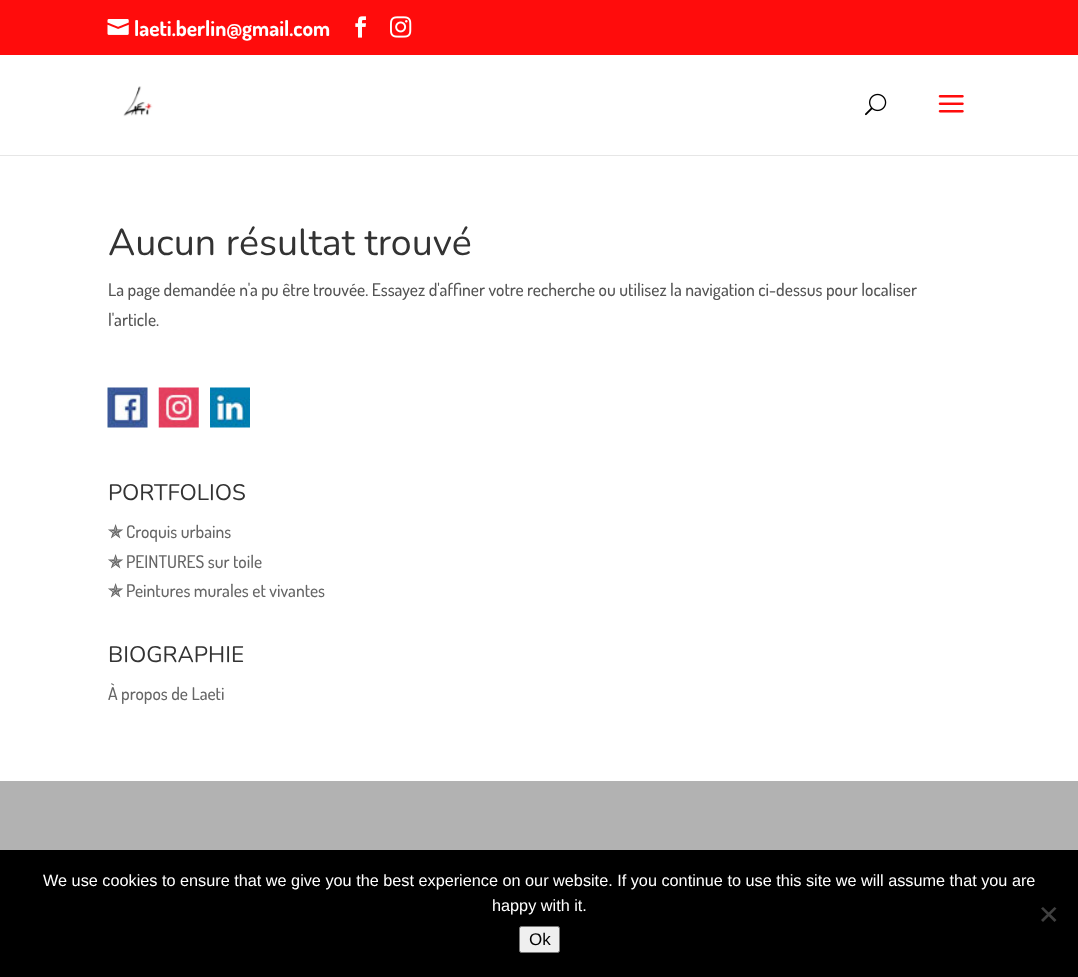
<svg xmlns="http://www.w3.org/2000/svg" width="1078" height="977">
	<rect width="100%" height="100%" fill="#FFFFFF" />
	<rect x="0" y="0" width="1078" height="55" fill="#FF0C0C" />
	<image x="107" y="19" width="22" height="16" href="assets/img1.png" />
	<text x="134" y="36" font-family="Dosis" font-size="21.25" font-weight="700" fill="#FFFFFF">laeti.berlin@gmail.com</text>
	<image x="355" y="16" width="11" height="22" href="assets/img2.png" />
	<image x="390" y="16" width="22" height="22" href="assets/img3.png" />
	<path d="M0 155V156H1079V56V155Z" fill="#E6E6E6" />
	<image x="123" y="86" width="30" height="31" href="assets/img4.png" />
	<image x="865" y="93" width="22" height="23" href="assets/img5.png" />
	<image x="938" y="95" width="26" height="18" href="assets/img6.png" />
	<text x="108" y="255" font-family="Nunito" font-size="37.5" fill="#333333">Aucun résultat trouvé</text>
	<g font-family="Dosis" font-size="17.5" font-weight="500" fill="#545454">
		<text x="108" y="296">La page demandée n'a pu être trouvée. Essayez d'affiner votre recherche ou utilisez la navigation ci-dessus pour localiser</text>
		<text x="108" y="326">l'article.</text>
	</g>
	<image x="107" y="387" width="41" height="41" href="assets/img7.png" />
	<image x="158" y="387" width="41" height="41" href="assets/img8.png" />
	<image x="210" y="387" width="40" height="41" href="assets/img9.png" />
	<text x="108" y="500" font-family="Nunito" font-size="22.5" fill="#333333">PORTFOLIOS</text>
	<text x="108" y="538" font-family="DejaVu Sans" font-size="17.5" font-weight="700" fill="#666666">✯</text>
	<text x="126" y="538" font-family="Dosis" font-size="17.5" font-weight="500" fill="#666666">Croquis urbains</text>
	<text x="108" y="568" font-family="DejaVu Sans" font-size="17.5" font-weight="700" fill="#666666">✯</text>
	<text x="126" y="568" font-family="Dosis" font-size="17.5" font-weight="500" fill="#666666">PEINTURES sur toile</text>
	<text x="108" y="597" font-family="DejaVu Sans" font-size="17.5" font-weight="700" fill="#666666">✯</text>
	<text x="126" y="597" font-family="Dosis" font-size="17.5" font-weight="500" fill="#666666">Peintures murales et vivantes</text>
	<text x="108" y="662" font-family="Nunito" font-size="22.5" fill="#333333">BIOGRAPHIE</text>
	<text x="108" y="700" font-family="Dosis" font-size="17.5" font-weight="500" fill="#666666">À propos de Laeti</text>
	<rect x="0" y="781" width="1078" height="69" fill="#B2B2B2" />
	<rect x="0" y="850" width="1078" height="127" fill="#000000" />
	<g font-family="Liberation Sans" font-size="16.25" fill="#FFFFFF">
		<text x="43" y="886">We use cookies to ensure that we give you the best experience on our website. If you continue to use this site we will assume that you are</text>
		<text x="492" y="911">happy with it.</text>
	</g>
	<path d="M1054.5 907L1056.5 908.5L1043 922L1041 920Z" fill="#404040" />
	<path d="M1041 908.5L1043 907L1056.5 920L1054.5 922Z" fill="#404040" />
	<rect x="519.5" y="926.5" width="40" height="26" rx="2" fill="#EFEFEF" stroke="#767676" />
	<text x="529" y="945" font-family="Liberation Sans" font-size="17" fill="#000000">Ok</text>
</svg>
